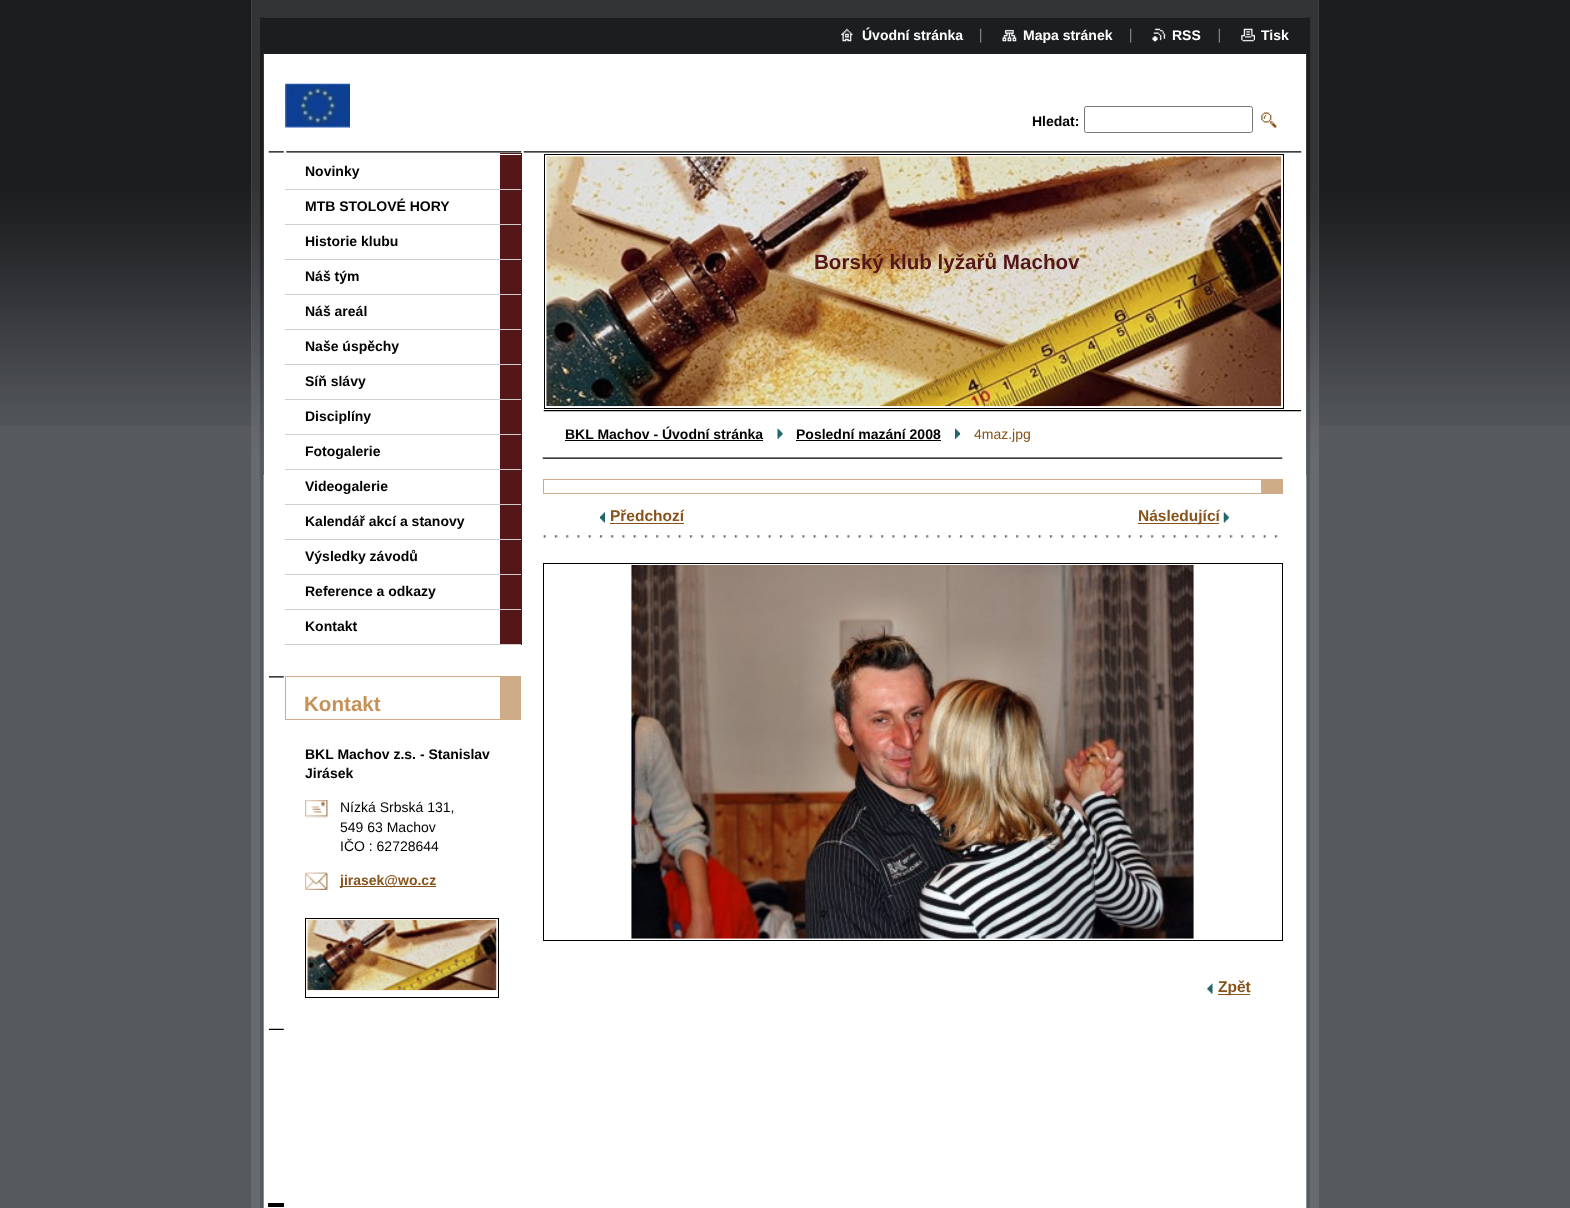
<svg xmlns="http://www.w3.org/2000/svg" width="1570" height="1208">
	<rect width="100%" height="100%" fill="#56595D" />
	<image x="0" y="0" width="1570" height="426" href="assets/img1.png" />
	<rect x="251" y="0" width="1068" height="1208" fill="#676A6E" />
	<image x="260" y="53" width="1050" height="1155" href="assets/img2.png" />
	<image x="251" y="0" width="1068" height="475" href="assets/img3.png" />
	<rect x="264" y="17" width="1042" height="1" fill="#323436" />
	<rect x="264" y="53" width="1042" height="1" fill="#1B1D1F" />
	<image x="841" y="28" width="12" height="14" href="assets/img4.png" />
	<text x="862" y="40" font-family="Liberation Sans" font-size="14" font-weight="700" fill="#FFFFFF">Úvodní stránka</text>
	<image x="980" y="28" width="2" height="15" href="assets/img5.png" />
	<image x="1002" y="29" width="15" height="13" href="assets/img6.png" />
	<text x="1023" y="40" font-family="Liberation Sans" font-size="14" font-weight="700" fill="#FFFFFF">Mapa stránek</text>
	<image x="1130" y="28" width="2" height="15" href="assets/img5.png" />
	<image x="1152" y="28" width="14" height="14" href="assets/img7.png" />
	<text x="1172" y="40" font-family="Liberation Sans" font-size="14" font-weight="700" fill="#FFFFFF">RSS</text>
	<image x="1218" y="28" width="2" height="15" href="assets/img8.png" />
	<image x="1241" y="28" width="14" height="14" href="assets/img9.png" />
	<text x="1261" y="40" font-family="Liberation Sans" font-size="14" font-weight="700" fill="#FFFFFF">Tisk</text>
	<image x="285" y="83" width="65" height="45" href="assets/img10.png" />
	<text x="1032" y="126" font-family="Liberation Sans" font-size="14" font-weight="700" fill="#000000">Hledat:</text>
	<rect x="1084.5" y="106.5" width="168" height="26" rx="2" fill="none" stroke="#767676" />
	<image x="1261" y="112" width="16" height="16" href="assets/img11.png" />
	<image x="268" y="151" width="254" height="2" href="assets/img12.png" />
	<rect x="500" y="153" width="22" height="492" fill="#541617" />
	<rect x="500" y="154" width="21" height="1" fill="#FFFFFF" />
	<rect x="285" y="189" width="236" height="1" fill="#CFCFCF" />
	<text x="305" y="176" font-family="Liberation Sans" font-size="14" font-weight="700" fill="#000000">Novinky</text>
	<rect x="285" y="224" width="236" height="1" fill="#CFCFCF" />
	<text x="305" y="211" font-family="Liberation Sans" font-size="14" font-weight="700" fill="#000000">MTB STOLOVÉ HORY</text>
	<rect x="285" y="259" width="236" height="1" fill="#CFCFCF" />
	<text x="305" y="246" font-family="Liberation Sans" font-size="14" font-weight="700" fill="#000000">Historie klubu</text>
	<rect x="285" y="294" width="236" height="1" fill="#CFCFCF" />
	<text x="305" y="281" font-family="Liberation Sans" font-size="14" font-weight="700" fill="#000000">Náš tým</text>
	<rect x="285" y="329" width="236" height="1" fill="#CFCFCF" />
	<text x="305" y="316" font-family="Liberation Sans" font-size="14" font-weight="700" fill="#000000">Náš areál</text>
	<rect x="285" y="364" width="236" height="1" fill="#CFCFCF" />
	<text x="305" y="351" font-family="Liberation Sans" font-size="14" font-weight="700" fill="#000000">Naše úspěchy</text>
	<rect x="285" y="399" width="236" height="1" fill="#CFCFCF" />
	<text x="305" y="386" font-family="Liberation Sans" font-size="14" font-weight="700" fill="#000000">Síň slávy</text>
	<rect x="285" y="434" width="236" height="1" fill="#CFCFCF" />
	<text x="305" y="421" font-family="Liberation Sans" font-size="14" font-weight="700" fill="#000000">Disciplíny</text>
	<rect x="285" y="469" width="236" height="1" fill="#CFCFCF" />
	<text x="305" y="456" font-family="Liberation Sans" font-size="14" font-weight="700" fill="#000000">Fotogalerie</text>
	<rect x="285" y="504" width="236" height="1" fill="#CFCFCF" />
	<text x="305" y="491" font-family="Liberation Sans" font-size="14" font-weight="700" fill="#000000">Videogalerie</text>
	<rect x="285" y="539" width="236" height="1" fill="#CFCFCF" />
	<text x="305" y="526" font-family="Liberation Sans" font-size="14" font-weight="700" fill="#000000">Kalendář akcí a stanovy</text>
	<rect x="285" y="574" width="236" height="1" fill="#CFCFCF" />
	<text x="305" y="561" font-family="Liberation Sans" font-size="14" font-weight="700" fill="#000000">Výsledky závodů</text>
	<rect x="285" y="609" width="236" height="1" fill="#CFCFCF" />
	<text x="305" y="596" font-family="Liberation Sans" font-size="14" font-weight="700" fill="#000000">Reference a odkazy</text>
	<rect x="285" y="644" width="236" height="1" fill="#CFCFCF" />
	<text x="305" y="631" font-family="Liberation Sans" font-size="14" font-weight="700" fill="#000000">Kontakt</text>
	<image x="268" y="676" width="16" height="2" href="assets/img13.png" />
	<rect x="285" y="676" width="215" height="1" fill="#CEAC88" />
	<rect x="500" y="676" width="21" height="43" fill="#CEAC88" />
	<rect x="285" y="719" width="236" height="1" fill="#CEAC88" />
	<rect x="285" y="676" width="1" height="44" fill="#CEAC88" />
	<text x="304" y="711" font-family="Liberation Sans" font-size="20.6" font-weight="700" fill="#C69159">Kontakt</text>
	<g font-family="Liberation Sans" font-size="14" font-weight="700" fill="#000000">
		<text x="305" y="759">BKL Machov z.s. - Stanislav</text>
		<text x="305" y="778">Jirásek</text>
	</g>
	<image x="305" y="800" width="23" height="18" href="assets/img14.png" />
	<g font-family="Liberation Sans" font-size="14" fill="#000000">
		<text x="340" y="812">Nízká Srbská 131,</text>
		<text x="340" y="832">549 63 Machov</text>
		<text x="340" y="851">IČO : 62728644</text>
	</g>
	<image x="305" y="872" width="23" height="18" href="assets/img15.png" />
	<rect x="340" y="886" width="96" height="1" fill="#86531C" />
	<text x="340" y="885" font-family="Liberation Sans" font-size="14" font-weight="700" fill="#86531C">jirasek@wo.cz</text>
	<rect x="305.5" y="918.5" width="193" height="79" fill="none" stroke="#000000" />
	<rect x="306.5" y="919.5" width="191" height="71" fill="none" stroke="#FDF2E6" />
	<image x="307" y="920" width="190" height="70" href="assets/img16.png" />
	<image x="268" y="1028" width="16" height="2" href="assets/img17.png" />
	<rect x="268" y="1203" width="16" height="4" fill="#000000" />
	<image x="523" y="151" width="779" height="2" href="assets/img18.png" />
	<image x="543" y="410" width="759" height="2" href="assets/img19.png" />
	<rect x="544.5" y="154.5" width="739" height="254" fill="none" stroke="#000000" />
	<image x="546" y="156" width="736" height="251" href="assets/img20.png" />
	<text x="814" y="269" font-family="Liberation Sans" font-size="20.6" font-weight="700" fill="#541617">Borský klub lyžařů Machov</text>
	<image x="542" y="457" width="741" height="2" href="assets/img21.png" />
	<text x="565" y="439" font-family="Liberation Sans" font-size="14" font-weight="700" fill="#000000">BKL Machov - Úvodní stránka</text>
	<rect x="565" y="440" width="198" height="1" fill="#000000" />
	<image x="777" y="428" width="6" height="11" href="assets/img22.png" />
	<text x="796" y="439" font-family="Liberation Sans" font-size="14" font-weight="700" fill="#000000">Poslední mazání 2008</text>
	<rect x="796" y="440" width="145" height="1" fill="#000000" />
	<image x="955" y="428" width="5" height="11" href="assets/img23.png" />
	<text x="974" y="439" font-family="Liberation Sans" font-size="14" fill="#86531C">4maz.jpg</text>
	<rect x="543" y="479" width="718" height="1" fill="#CEAC88" />
	<rect x="1261" y="479" width="22" height="14" fill="#CEAC88" />
	<rect x="543" y="493" width="740" height="1" fill="#CEAC88" />
	<rect x="543" y="479" width="1" height="15" fill="#CEAC88" />
	<image x="543" y="535" width="735" height="3" href="assets/img24.png" />
	<image x="600" y="512" width="5" height="11" href="assets/img25.png" />
	<text x="610" y="521" font-family="Liberation Sans" font-size="15.5" font-weight="700" fill="#86531C">Předchozí</text>
	<rect x="610" y="523" width="74" height="1" fill="#86531C" />
	<rect x="1138" y="523" width="81" height="1" fill="#86531C" />
	<text x="1138" y="521" font-family="Liberation Sans" font-size="15.5" font-weight="700" fill="#86531C">Následující</text>
	<image x="1223" y="512" width="6" height="11" href="assets/img26.png" />
	<rect x="543.5" y="563.5" width="739" height="377" fill="none" stroke="#000000" />
	<image x="631" y="565" width="563" height="374" href="assets/img27.png" />
	<image x="1207" y="983" width="6" height="11" href="assets/img28.png" />
	<rect x="1218" y="994" width="32" height="1" fill="#86531C" />
	<text x="1218" y="992" font-family="Liberation Sans" font-size="15.5" font-weight="700" fill="#86531C">Zpět</text>
</svg>
